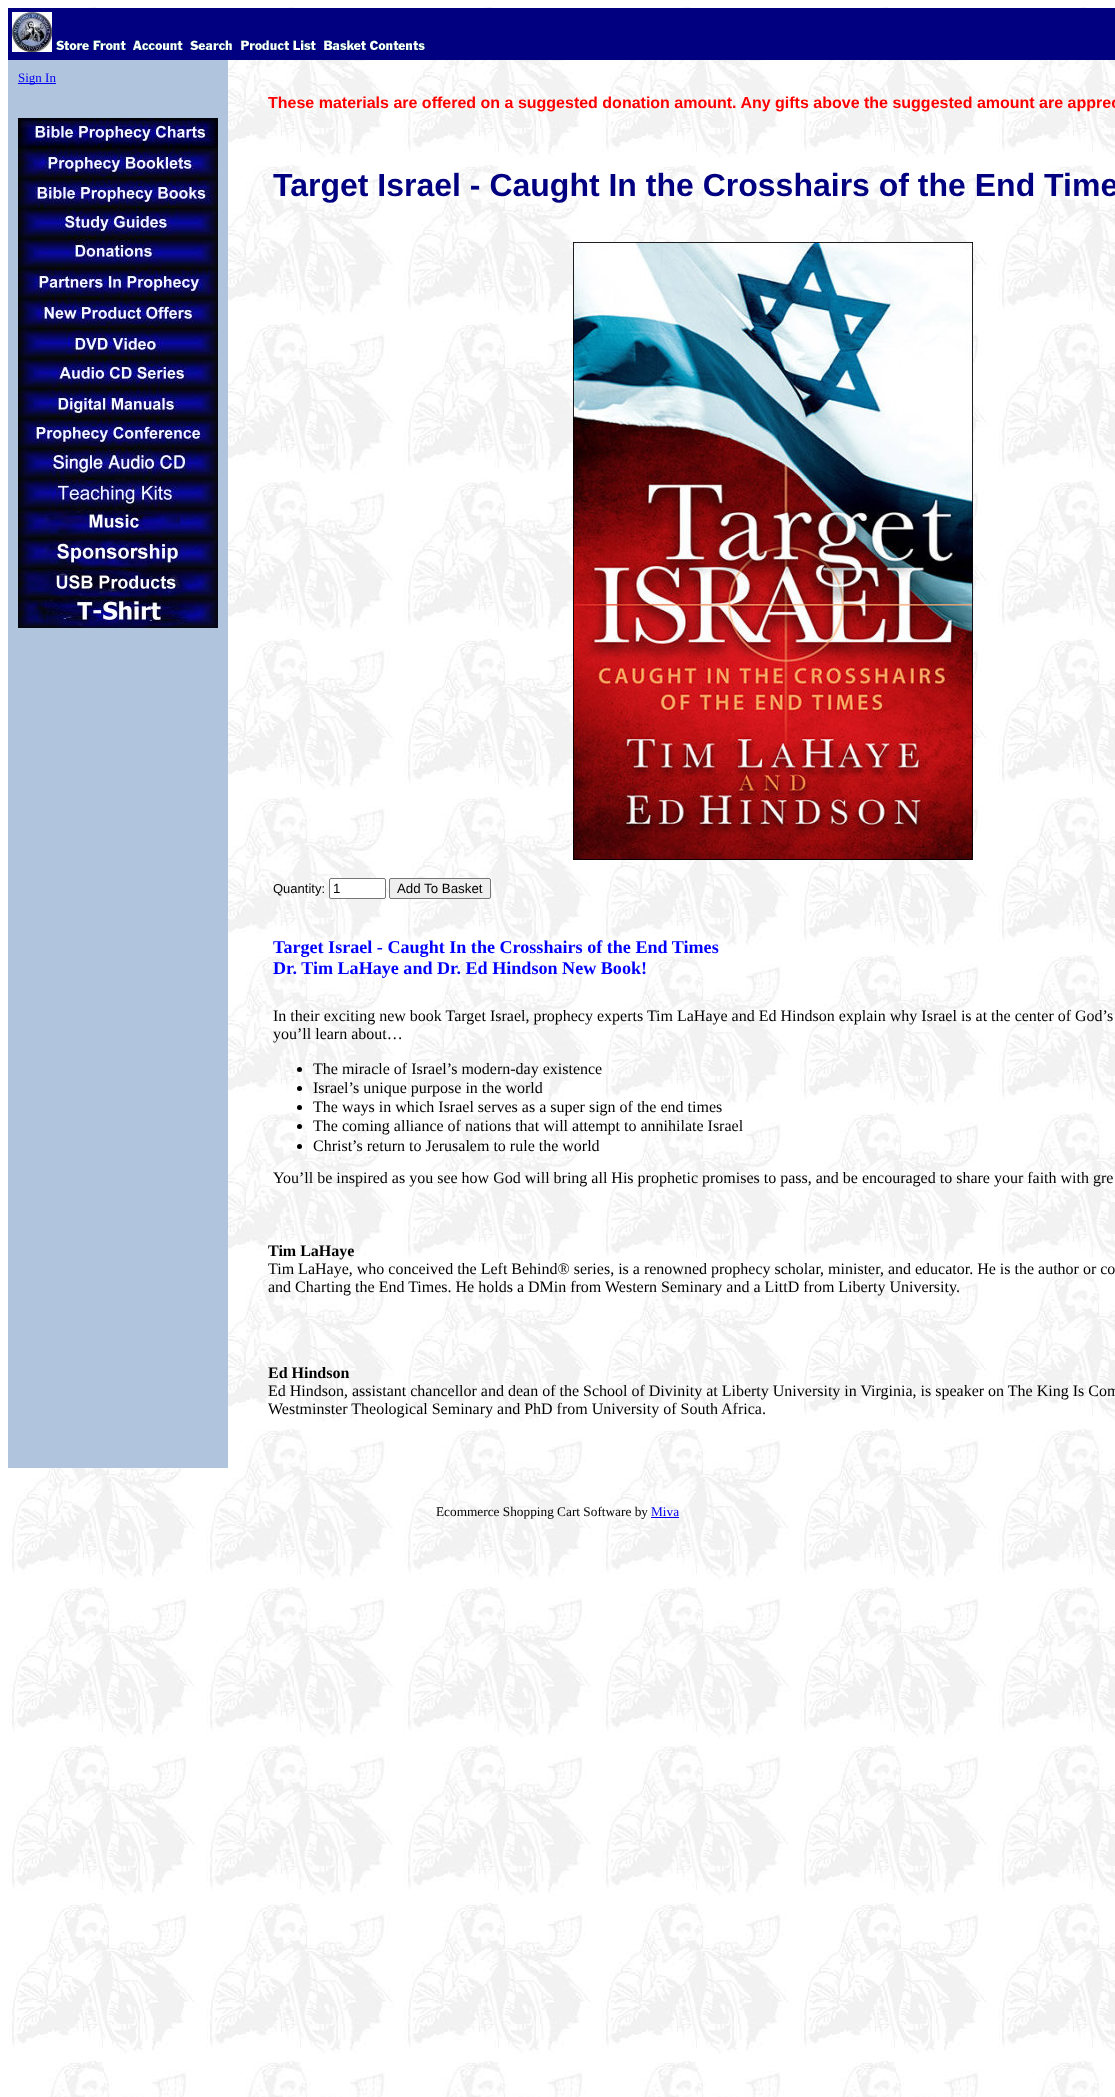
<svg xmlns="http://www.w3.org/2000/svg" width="1115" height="2097">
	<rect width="100%" height="100%" fill="#FFFFFF" />
	<image x="9" y="7" width="1106" height="2090" href="assets/img1.png" />
	<rect x="8" y="8" width="1107" height="52" fill="#000080" />
	<image x="12" y="12" width="40" height="40" href="assets/img2.png" />
	<image x="56" y="40" width="70" height="10" href="assets/img3.png" />
	<image x="133" y="40" width="50" height="10" href="assets/img4.png" />
	<image x="190" y="40" width="42" height="10" href="assets/img5.png" />
	<image x="241" y="40" width="75" height="10" href="assets/img6.png" />
	<image x="324" y="40" width="101" height="10" href="assets/img7.png" />
	<rect x="8" y="60" width="220" height="1408" fill="#B0C4DE" />
	<rect x="18" y="83" width="38" height="1" fill="#0000EE" />
	<text x="18" y="82" font-family="Liberation Serif" font-size="13" fill="#0000EE">Sign In</text>
	<image x="18" y="118" width="200" height="30" href="assets/img8.png" />
	<image x="18" y="148" width="200" height="30" href="assets/img9.png" />
	<image x="18" y="178" width="200" height="30" href="assets/img10.png" />
	<image x="18" y="208" width="200" height="30" href="assets/img11.png" />
	<image x="18" y="238" width="200" height="30" href="assets/img12.png" />
	<image x="18" y="268" width="200" height="30" href="assets/img13.png" />
	<image x="18" y="298" width="200" height="30" href="assets/img14.png" />
	<image x="18" y="328" width="200" height="30" href="assets/img15.png" />
	<image x="18" y="358" width="200" height="30" href="assets/img16.png" />
	<image x="18" y="388" width="200" height="30" href="assets/img17.png" />
	<image x="18" y="418" width="200" height="30" href="assets/img18.png" />
	<image x="18" y="448" width="200" height="30" href="assets/img19.png" />
	<image x="18" y="478" width="200" height="30" href="assets/img20.png" />
	<image x="18" y="508" width="200" height="30" href="assets/img21.png" />
	<image x="18" y="538" width="200" height="30" href="assets/img22.png" />
	<image x="18" y="568" width="200" height="30" href="assets/img23.png" />
	<image x="18" y="598" width="200" height="30" href="assets/img24.png" />
	<text x="268" y="108" font-family="Liberation Sans" font-size="16" font-weight="700" fill="#FF0000">These materials are offered on a suggested donation amount. Any gifts above the suggested amount are apprec</text>
	<text x="273" y="196" font-family="Liberation Sans" font-size="32" font-weight="700" fill="#000080">Target Israel - Caught In the Crosshairs of the End Time</text>
	<image x="573" y="242" width="400" height="618" href="assets/img25.png" />
	<text x="273" y="893" font-family="Liberation Sans" font-size="13" fill="#000000">Quantity:</text>
	<rect x="329.5" y="878.5" width="56" height="20" rx="1.5" fill="#FFFFFF" stroke="#767676" />
	<text x="333" y="893" font-family="Liberation Sans" font-size="13.3" fill="#000000">1</text>
	<rect x="389.5" y="878.5" width="101" height="20" rx="1.5" fill="#EFEFEF" stroke="#767676" />
	<text x="397" y="893" font-family="Liberation Sans" font-size="13.3" fill="#000000">Add To Basket</text>
	<g font-family="Liberation Serif" font-size="18.1" font-weight="700" fill="#0000FF">
		<text x="273" y="953">Target Israel - Caught In the Crosshairs of the End Times</text>
		<text x="273" y="974">Dr. Tim LaHaye and Dr. Ed Hindson New Book!</text>
	</g>
	<g font-family="Liberation Serif" font-size="16" fill="#000000">
		<text x="273" y="1021">In their exciting new book Target Israel, prophecy experts Tim LaHaye and Ed Hindson explain why Israel is at the center of God’s</text>
		<text x="273" y="1039">you’ll learn about…</text>
	</g>
	<circle cx="299.5" cy="1069.5" r="2.5" fill="#000000" />
	<text x="313" y="1074" font-family="Liberation Serif" font-size="16" fill="#000000">The miracle of Israel’s modern-day existence</text>
	<circle cx="299.5" cy="1088.5" r="2.5" fill="#000000" />
	<text x="313" y="1093" font-family="Liberation Serif" font-size="16" fill="#000000">Israel’s unique purpose in the world</text>
	<circle cx="299.5" cy="1107.5" r="2.5" fill="#000000" />
	<text x="313" y="1112" font-family="Liberation Serif" font-size="16" fill="#000000">The ways in which Israel serves as a super sign of the end times</text>
	<circle cx="299.5" cy="1126.5" r="2.5" fill="#000000" />
	<text x="313" y="1131" font-family="Liberation Serif" font-size="16" fill="#000000">The coming alliance of nations that will attempt to annihilate Israel</text>
	<circle cx="299.5" cy="1146.5" r="2.5" fill="#000000" />
	<g font-family="Liberation Serif" font-size="16" fill="#000000">
		<text x="313" y="1151">Christ’s return to Jerusalem to rule the world</text>
		<text x="273" y="1183">You’ll be inspired as you see how God will bring all His prophetic promises to pass, and be encouraged to share your faith with gre</text>
	</g>
	<text x="268" y="1256" font-family="Liberation Serif" font-size="16" font-weight="700" fill="#000000">Tim LaHaye</text>
	<g font-family="Liberation Serif" font-size="16" fill="#000000">
		<text x="268" y="1274">Tim LaHaye, who conceived the Left Behind® series, is a renowned prophecy scholar, minister, and educator. He is the author or co</text>
		<text x="268" y="1292">and Charting the End Times. He holds a DMin from Western Seminary and a LittD from Liberty University.</text>
	</g>
	<text x="268" y="1378" font-family="Liberation Serif" font-size="16" font-weight="700" fill="#000000">Ed Hindson</text>
	<g font-family="Liberation Serif" font-size="16" fill="#000000">
		<text x="268" y="1396">Ed Hindson, assistant chancellor and dean of the School of Divinity at Liberty University in Virginia, is speaker on The King Is Com</text>
		<text x="268" y="1414">Westminster Theological Seminary and PhD from University of South Africa.</text>
	</g>
	<text x="436" y="1516" font-family="Liberation Serif" font-size="13.3" fill="#000000">Ecommerce Shopping Cart Software by</text>
	<text x="651" y="1516" font-family="Liberation Serif" font-size="13.3" fill="#0000EE">Miva</text>
	<rect x="651" y="1517" width="28" height="1" fill="#0000EE" />
</svg>
